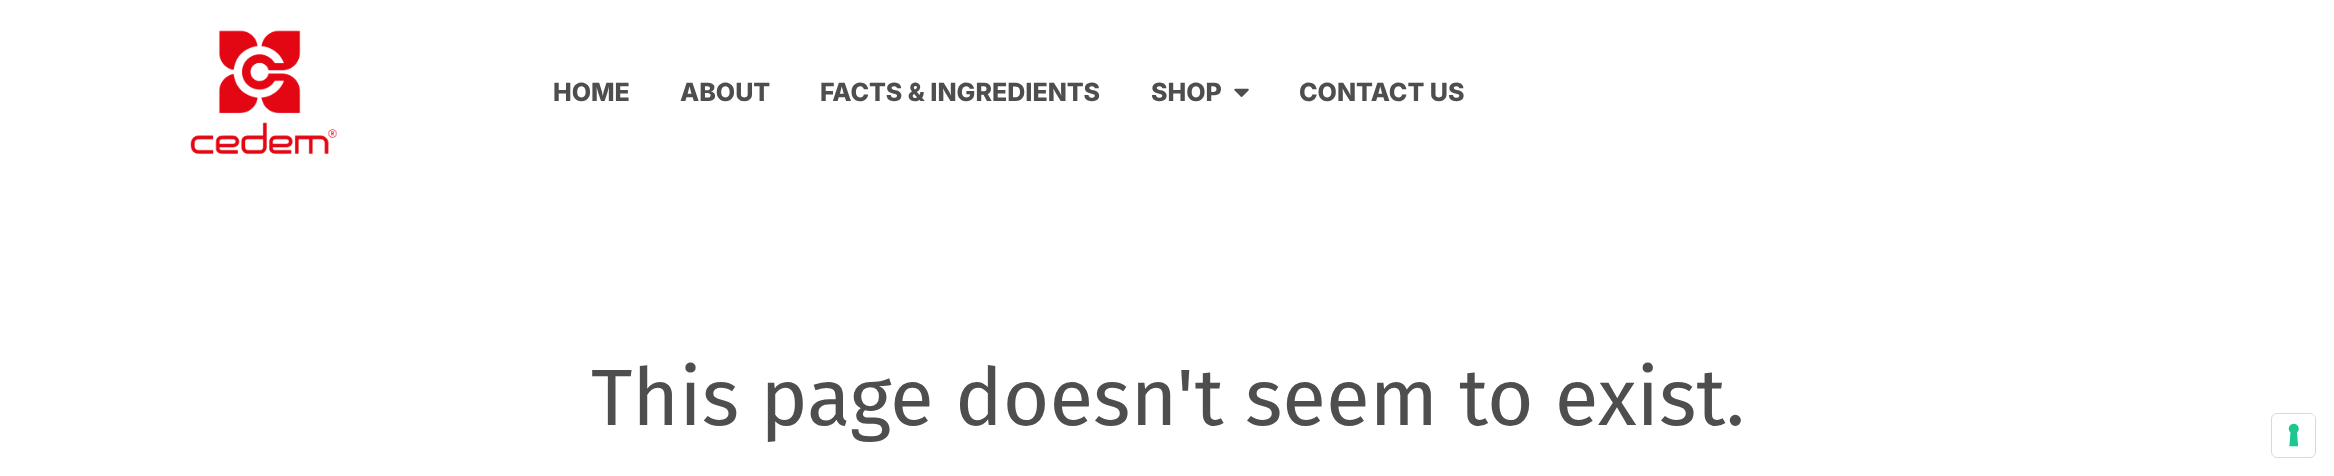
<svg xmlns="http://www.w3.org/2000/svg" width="2334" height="476">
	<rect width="100%" height="100%" fill="#FFFFFF" />
	<image x="190" y="30" width="148" height="125" href="assets/img1.png" />
	<g font-family="Inter" font-size="25" font-weight="800" fill="#4E4E4E">
		<text x="553" y="101">HOME</text>
		<text x="680" y="101">ABOUT</text>
		<text x="820" y="101">FACTS &amp; INGREDIENTS</text>
		<text x="1151" y="101">SHOP</text>
	</g>
	<image x="1234" y="88" width="15" height="9" href="assets/img2.png" />
	<text x="1299" y="101" font-family="Inter" font-size="25" font-weight="800" fill="#4E4E4E">CONTACT US</text>
	<text x="591" y="425" font-family="Fira Sans" font-size="80" fill="#4E4E4E">This page doesn't seem to exist.</text>
	<rect x="2271.5" y="413.5" width="44" height="44" rx="5.5" fill="none" stroke="#D9D9D9" />
	<rect x="2273" y="414" width="42" height="42" rx="5" fill="#FFFFFF" />
	<image x="2288" y="423" width="11" height="24" href="assets/img3.png" />
</svg>
